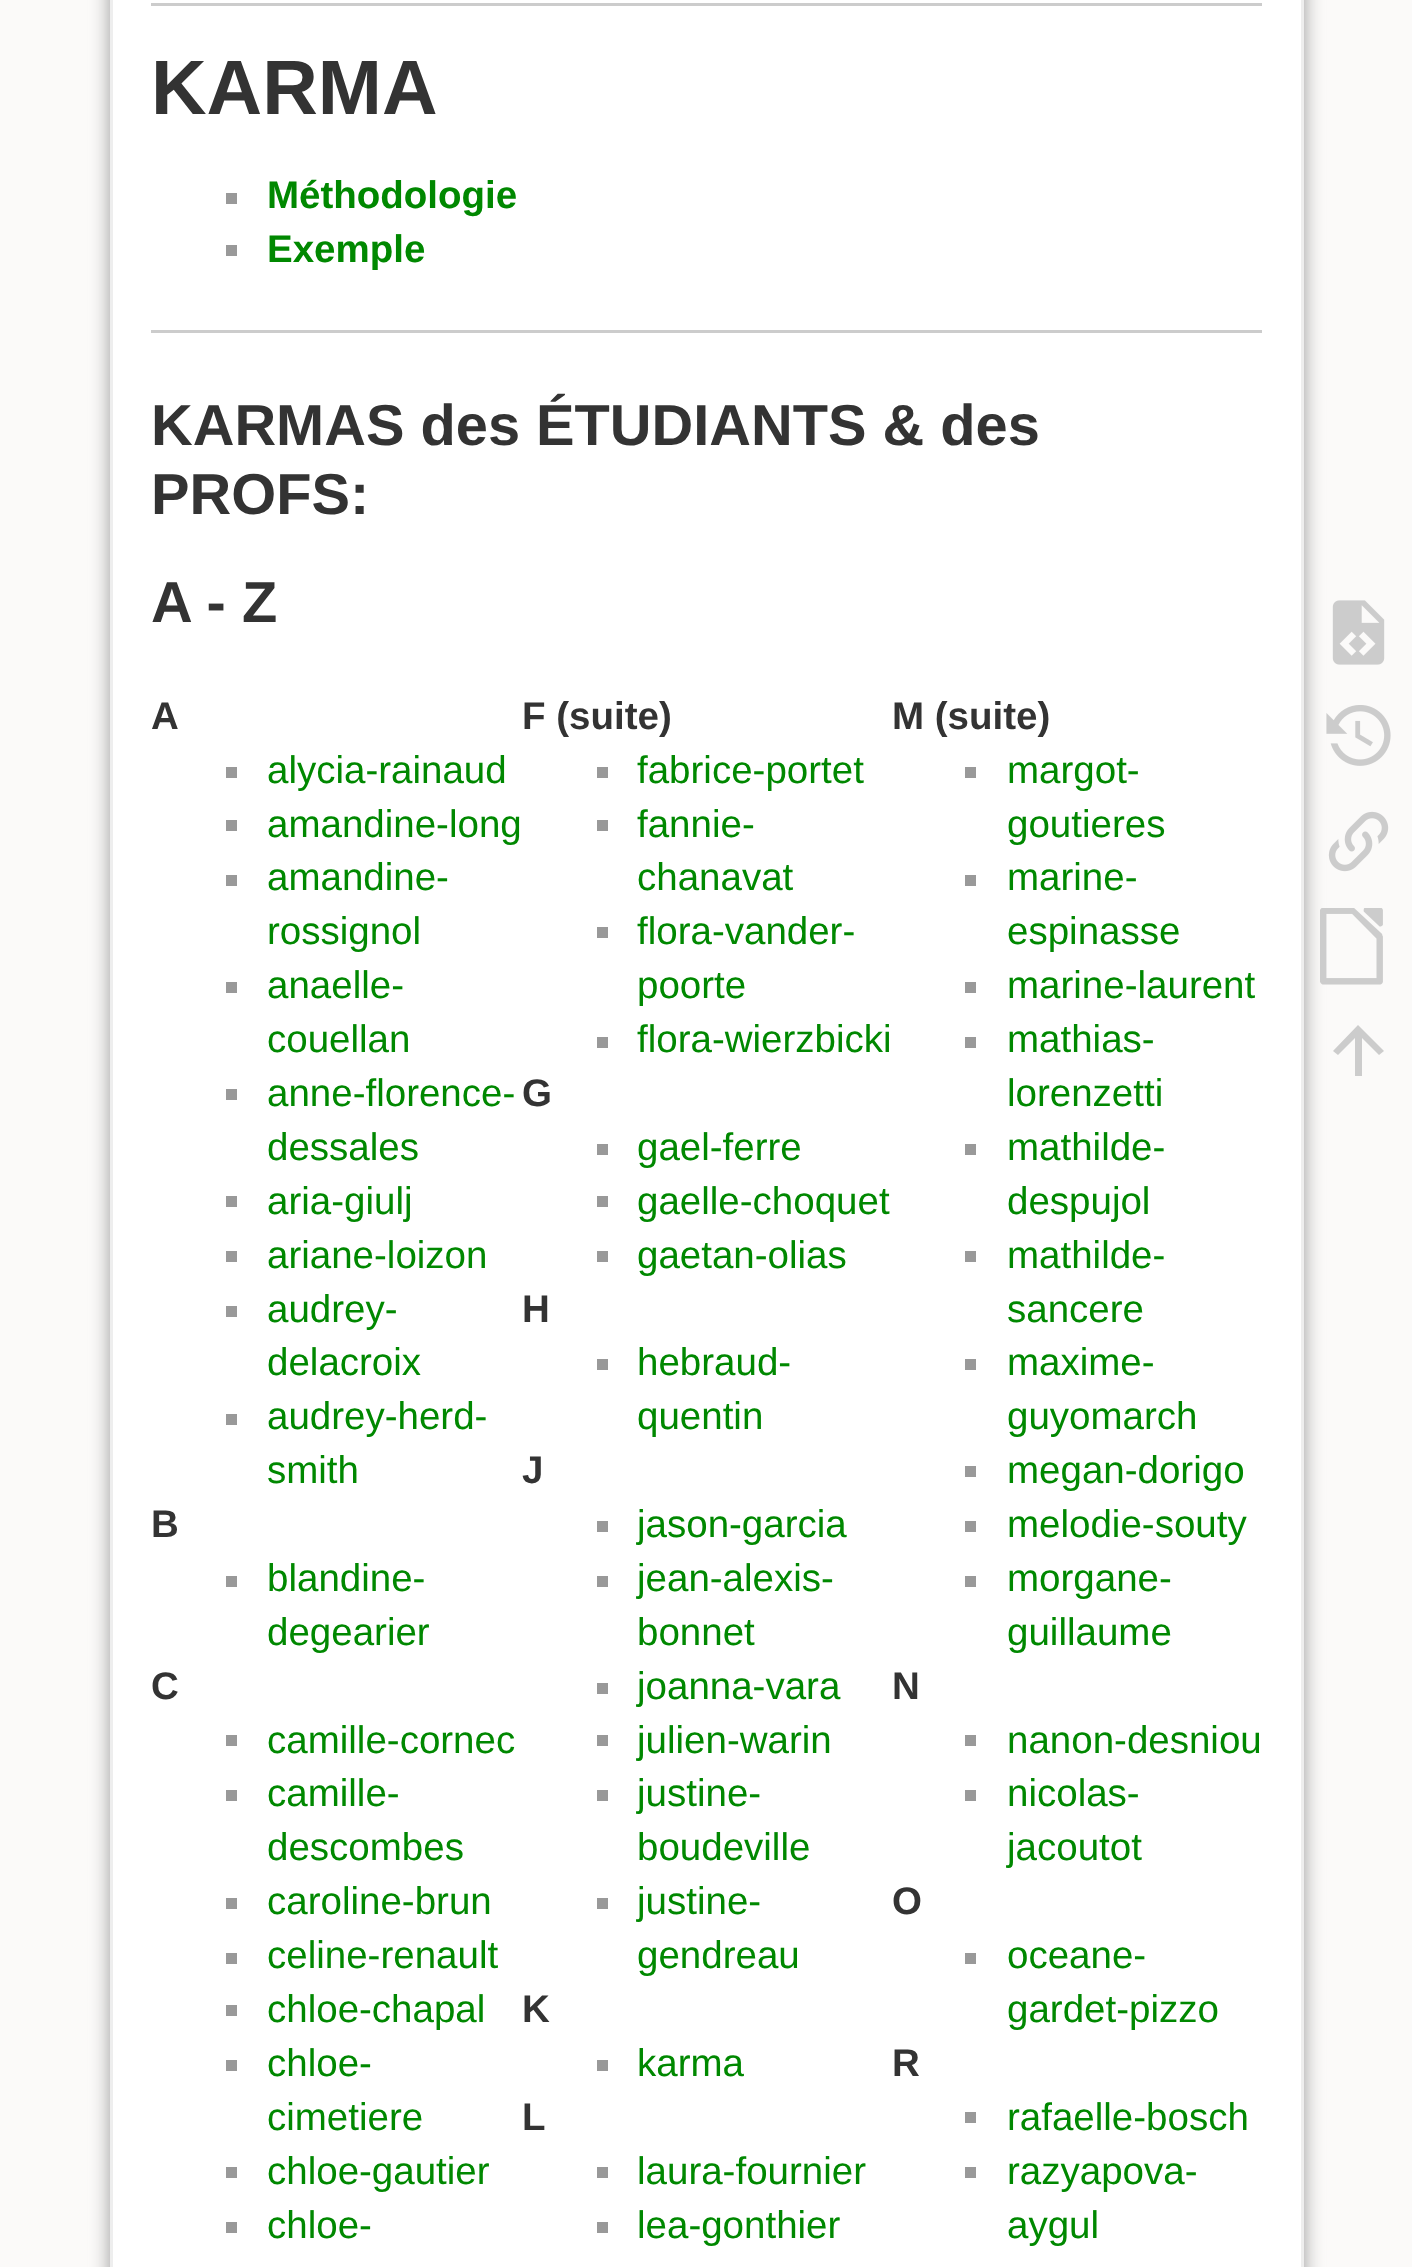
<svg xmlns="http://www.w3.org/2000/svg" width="1412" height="2267">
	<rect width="100%" height="100%" fill="#FBFAF9" />
	<rect x="110" y="-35" width="1194" height="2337" rx="6" fill="#999999" filter="blur(9.5px)" />
	<rect x="111.5" y="-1.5" width="1191" height="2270" fill="#FFFFFF" stroke="#EEEEEE" stroke-width="3" />
	<rect x="151" y="3" width="1111" height="3" fill="#CCCCCC" />
	<text x="151" y="114" font-family="Liberation Sans" font-size="77" font-weight="700" fill="#333333">KARMA</text>
	<rect x="226" y="193" width="11" height="11" fill="#999999" />
	<text x="267" y="208" font-family="Liberation Sans" font-size="38.5" font-weight="700" fill="#008800">Méthodologie</text>
	<rect x="226" y="245" width="11" height="11" fill="#999999" />
	<text x="267" y="262" font-family="Liberation Sans" font-size="38.5" font-weight="700" fill="#008800">Exemple</text>
	<rect x="151" y="330" width="1111" height="3" fill="#CCCCCC" />
	<g font-family="Liberation Sans" font-size="57.75" font-weight="700" fill="#333333">
		<text x="151" y="445">KARMAS des ÉTUDIANTS &amp; des</text>
		<text x="151" y="514">PROFS:</text>
		<text x="151" y="622">A - Z</text>
	</g>
	<text x="151" y="729" font-family="Liberation Sans" font-size="38.5" font-weight="700" fill="#333333">A</text>
	<rect x="226" y="767" width="11" height="11" fill="#999999" />
	<text x="267" y="783" font-family="Liberation Sans" font-size="38.5" fill="#008800">alycia-rainaud</text>
	<rect x="226" y="820" width="11" height="11" fill="#999999" />
	<text x="267" y="837" font-family="Liberation Sans" font-size="38.5" fill="#008800">amandine-long</text>
	<rect x="226" y="875" width="11" height="11" fill="#999999" />
	<g font-family="Liberation Sans" font-size="38.5" fill="#008800">
		<text x="267" y="890">amandine-</text>
		<text x="267" y="944">rossignol</text>
	</g>
	<rect x="226" y="982" width="11" height="11" fill="#999999" />
	<g font-family="Liberation Sans" font-size="38.5" fill="#008800">
		<text x="267" y="998">anaelle-</text>
		<text x="267" y="1052">couellan</text>
	</g>
	<rect x="226" y="1089" width="11" height="11" fill="#999999" />
	<g font-family="Liberation Sans" font-size="38.5" fill="#008800">
		<text x="267" y="1106">anne-florence-</text>
		<text x="267" y="1160">dessales</text>
	</g>
	<rect x="226" y="1196" width="11" height="11" fill="#999999" />
	<text x="267" y="1214" font-family="Liberation Sans" font-size="38.5" fill="#008800">aria-giulj</text>
	<rect x="226" y="1251" width="11" height="11" fill="#999999" />
	<text x="267" y="1268" font-family="Liberation Sans" font-size="38.5" fill="#008800">ariane-loizon</text>
	<rect x="226" y="1306" width="11" height="11" fill="#999999" />
	<g font-family="Liberation Sans" font-size="38.5" fill="#008800">
		<text x="267" y="1322">audrey-</text>
		<text x="267" y="1375">delacroix</text>
	</g>
	<rect x="226" y="1414" width="11" height="11" fill="#999999" />
	<g font-family="Liberation Sans" font-size="38.5" fill="#008800">
		<text x="267" y="1429">audrey-herd-</text>
		<text x="267" y="1483">smith</text>
	</g>
	<text x="151" y="1537" font-family="Liberation Sans" font-size="38.5" font-weight="700" fill="#333333">B</text>
	<rect x="226" y="1576" width="11" height="11" fill="#999999" />
	<g font-family="Liberation Sans" font-size="38.5" fill="#008800">
		<text x="267" y="1591">blandine-</text>
		<text x="267" y="1645">degearier</text>
	</g>
	<text x="151" y="1699" font-family="Liberation Sans" font-size="38.5" font-weight="700" fill="#333333">C</text>
	<rect x="226" y="1735" width="11" height="11" fill="#999999" />
	<text x="267" y="1753" font-family="Liberation Sans" font-size="38.5" fill="#008800">camille-cornec</text>
	<rect x="226" y="1790" width="11" height="11" fill="#999999" />
	<g font-family="Liberation Sans" font-size="38.5" fill="#008800">
		<text x="267" y="1806">camille-</text>
		<text x="267" y="1860">descombes</text>
	</g>
	<rect x="226" y="1898" width="11" height="11" fill="#999999" />
	<text x="267" y="1914" font-family="Liberation Sans" font-size="38.5" fill="#008800">caroline-brun</text>
	<rect x="226" y="1953" width="11" height="11" fill="#999999" />
	<text x="267" y="1968" font-family="Liberation Sans" font-size="38.5" fill="#008800">celine-renault</text>
	<rect x="226" y="2005" width="11" height="11" fill="#999999" />
	<text x="267" y="2022" font-family="Liberation Sans" font-size="38.5" fill="#008800">chloe-chapal</text>
	<rect x="226" y="2060" width="11" height="11" fill="#999999" />
	<g font-family="Liberation Sans" font-size="38.5" fill="#008800">
		<text x="267" y="2076">chloe-</text>
		<text x="267" y="2130">cimetiere</text>
	</g>
	<rect x="226" y="2167" width="11" height="11" fill="#999999" />
	<text x="267" y="2184" font-family="Liberation Sans" font-size="38.5" fill="#008800">chloe-gautier</text>
	<rect x="226" y="2222" width="11" height="11" fill="#999999" />
	<text x="267" y="2238" font-family="Liberation Sans" font-size="38.5" fill="#008800">chloe-</text>
	<text x="522" y="729" font-family="Liberation Sans" font-size="38.5" font-weight="700" fill="#333333">F (suite)</text>
	<rect x="597" y="767" width="11" height="11" fill="#999999" />
	<text x="637" y="783" font-family="Liberation Sans" font-size="38.5" fill="#008800">fabrice-portet</text>
	<rect x="597" y="820" width="11" height="11" fill="#999999" />
	<g font-family="Liberation Sans" font-size="38.5" fill="#008800">
		<text x="637" y="837">fannie-</text>
		<text x="637" y="890">chanavat</text>
	</g>
	<rect x="597" y="927" width="11" height="11" fill="#999999" />
	<g font-family="Liberation Sans" font-size="38.5" fill="#008800">
		<text x="637" y="944">flora-vander-</text>
		<text x="637" y="998">poorte</text>
	</g>
	<rect x="597" y="1037" width="11" height="11" fill="#999999" />
	<text x="637" y="1052" font-family="Liberation Sans" font-size="38.5" fill="#008800">flora-wierzbicki</text>
	<text x="522" y="1106" font-family="Liberation Sans" font-size="38.5" font-weight="700" fill="#333333">G</text>
	<rect x="597" y="1144" width="11" height="11" fill="#999999" />
	<text x="637" y="1160" font-family="Liberation Sans" font-size="38.5" fill="#008800">gael-ferre</text>
	<rect x="597" y="1196" width="11" height="11" fill="#999999" />
	<text x="637" y="1214" font-family="Liberation Sans" font-size="38.5" fill="#008800">gaelle-choquet</text>
	<rect x="597" y="1251" width="11" height="11" fill="#999999" />
	<text x="637" y="1268" font-family="Liberation Sans" font-size="38.5" fill="#008800">gaetan-olias</text>
	<text x="522" y="1322" font-family="Liberation Sans" font-size="38.5" font-weight="700" fill="#333333">H</text>
	<rect x="597" y="1359" width="11" height="11" fill="#999999" />
	<g font-family="Liberation Sans" font-size="38.5" fill="#008800">
		<text x="637" y="1375">hebraud-</text>
		<text x="637" y="1429">quentin</text>
	</g>
	<text x="522" y="1483" font-family="Liberation Sans" font-size="38.5" font-weight="700" fill="#333333">J</text>
	<rect x="597" y="1521" width="11" height="11" fill="#999999" />
	<text x="637" y="1537" font-family="Liberation Sans" font-size="38.5" fill="#008800">jason-garcia</text>
	<rect x="597" y="1576" width="11" height="11" fill="#999999" />
	<g font-family="Liberation Sans" font-size="38.5" fill="#008800">
		<text x="637" y="1591">jean-alexis-</text>
		<text x="637" y="1645">bonnet</text>
	</g>
	<rect x="597" y="1683" width="11" height="11" fill="#999999" />
	<text x="637" y="1699" font-family="Liberation Sans" font-size="38.5" fill="#008800">joanna-vara</text>
	<rect x="597" y="1735" width="11" height="11" fill="#999999" />
	<text x="637" y="1753" font-family="Liberation Sans" font-size="38.5" fill="#008800">julien-warin</text>
	<rect x="597" y="1790" width="11" height="11" fill="#999999" />
	<g font-family="Liberation Sans" font-size="38.5" fill="#008800">
		<text x="637" y="1806">justine-</text>
		<text x="637" y="1860">boudeville</text>
	</g>
	<rect x="597" y="1898" width="11" height="11" fill="#999999" />
	<g font-family="Liberation Sans" font-size="38.5" fill="#008800">
		<text x="637" y="1914">justine-</text>
		<text x="637" y="1968">gendreau</text>
	</g>
	<text x="522" y="2022" font-family="Liberation Sans" font-size="38.5" font-weight="700" fill="#333333">K</text>
	<rect x="597" y="2060" width="11" height="11" fill="#999999" />
	<text x="637" y="2076" font-family="Liberation Sans" font-size="38.5" fill="#008800">karma</text>
	<text x="522" y="2130" font-family="Liberation Sans" font-size="38.5" font-weight="700" fill="#333333">L</text>
	<rect x="597" y="2167" width="11" height="11" fill="#999999" />
	<text x="637" y="2184" font-family="Liberation Sans" font-size="38.5" fill="#008800">laura-fournier</text>
	<rect x="597" y="2222" width="11" height="11" fill="#999999" />
	<text x="637" y="2238" font-family="Liberation Sans" font-size="38.5" fill="#008800">lea-gonthier</text>
	<text x="892" y="729" font-family="Liberation Sans" font-size="38.5" font-weight="700" fill="#333333">M (suite)</text>
	<rect x="965" y="767" width="11" height="11" fill="#999999" />
	<g font-family="Liberation Sans" font-size="38.5" fill="#008800">
		<text x="1007" y="783">margot-</text>
		<text x="1007" y="837">goutieres</text>
	</g>
	<rect x="965" y="875" width="11" height="11" fill="#999999" />
	<g font-family="Liberation Sans" font-size="38.5" fill="#008800">
		<text x="1007" y="890">marine-</text>
		<text x="1007" y="944">espinasse</text>
	</g>
	<rect x="965" y="982" width="11" height="11" fill="#999999" />
	<text x="1007" y="998" font-family="Liberation Sans" font-size="38.5" fill="#008800">marine-laurent</text>
	<rect x="965" y="1037" width="11" height="11" fill="#999999" />
	<g font-family="Liberation Sans" font-size="38.5" fill="#008800">
		<text x="1007" y="1052">mathias-</text>
		<text x="1007" y="1106">lorenzetti</text>
	</g>
	<rect x="965" y="1144" width="11" height="11" fill="#999999" />
	<g font-family="Liberation Sans" font-size="38.5" fill="#008800">
		<text x="1007" y="1160">mathilde-</text>
		<text x="1007" y="1214">despujol</text>
	</g>
	<rect x="965" y="1251" width="11" height="11" fill="#999999" />
	<g font-family="Liberation Sans" font-size="38.5" fill="#008800">
		<text x="1007" y="1268">mathilde-</text>
		<text x="1007" y="1322">sancere</text>
	</g>
	<rect x="965" y="1359" width="11" height="11" fill="#999999" />
	<g font-family="Liberation Sans" font-size="38.5" fill="#008800">
		<text x="1007" y="1375">maxime-</text>
		<text x="1007" y="1429">guyomarch</text>
	</g>
	<rect x="965" y="1466" width="11" height="11" fill="#999999" />
	<text x="1007" y="1483" font-family="Liberation Sans" font-size="38.5" fill="#008800">megan-dorigo</text>
	<rect x="965" y="1521" width="11" height="11" fill="#999999" />
	<text x="1007" y="1537" font-family="Liberation Sans" font-size="38.5" fill="#008800">melodie-souty</text>
	<rect x="965" y="1576" width="11" height="11" fill="#999999" />
	<g font-family="Liberation Sans" font-size="38.5" fill="#008800">
		<text x="1007" y="1591">morgane-</text>
		<text x="1007" y="1645">guillaume</text>
	</g>
	<text x="892" y="1699" font-family="Liberation Sans" font-size="38.5" font-weight="700" fill="#333333">N</text>
	<rect x="965" y="1735" width="11" height="11" fill="#999999" />
	<text x="1007" y="1753" font-family="Liberation Sans" font-size="38.5" fill="#008800">nanon-desniou</text>
	<rect x="965" y="1790" width="11" height="11" fill="#999999" />
	<g font-family="Liberation Sans" font-size="38.5" fill="#008800">
		<text x="1007" y="1806">nicolas-</text>
		<text x="1007" y="1860">jacoutot</text>
	</g>
	<text x="892" y="1914" font-family="Liberation Sans" font-size="38.5" font-weight="700" fill="#333333">O</text>
	<rect x="965" y="1953" width="11" height="11" fill="#999999" />
	<g font-family="Liberation Sans" font-size="38.5" fill="#008800">
		<text x="1007" y="1968">oceane-</text>
		<text x="1007" y="2022">gardet-pizzo</text>
	</g>
	<text x="892" y="2076" font-family="Liberation Sans" font-size="38.5" font-weight="700" fill="#333333">R</text>
	<rect x="965" y="2112" width="11" height="11" fill="#999999" />
	<text x="1007" y="2130" font-family="Liberation Sans" font-size="38.5" fill="#008800">rafaelle-bosch</text>
	<rect x="965" y="2167" width="11" height="11" fill="#999999" />
	<g font-family="Liberation Sans" font-size="38.5" fill="#008800">
		<text x="1007" y="2184">razyapova-</text>
		<text x="1007" y="2238">aygul</text>
	</g>
	<image x="1332" y="600" width="53" height="65" href="assets/img1.png" />
	<image x="1326" y="705" width="65" height="61" href="assets/img2.png" />
	<image x="1328" y="811" width="61" height="61" href="assets/img3.png" />
	<image x="1320" y="908" width="63" height="77" href="assets/img4.png" />
	<path d="M1362 1076H1355V1038L1338 1055L1333 1051L1358 1025L1384 1051L1379 1055L1362 1038Z" fill="#CCCCCC" />
</svg>
